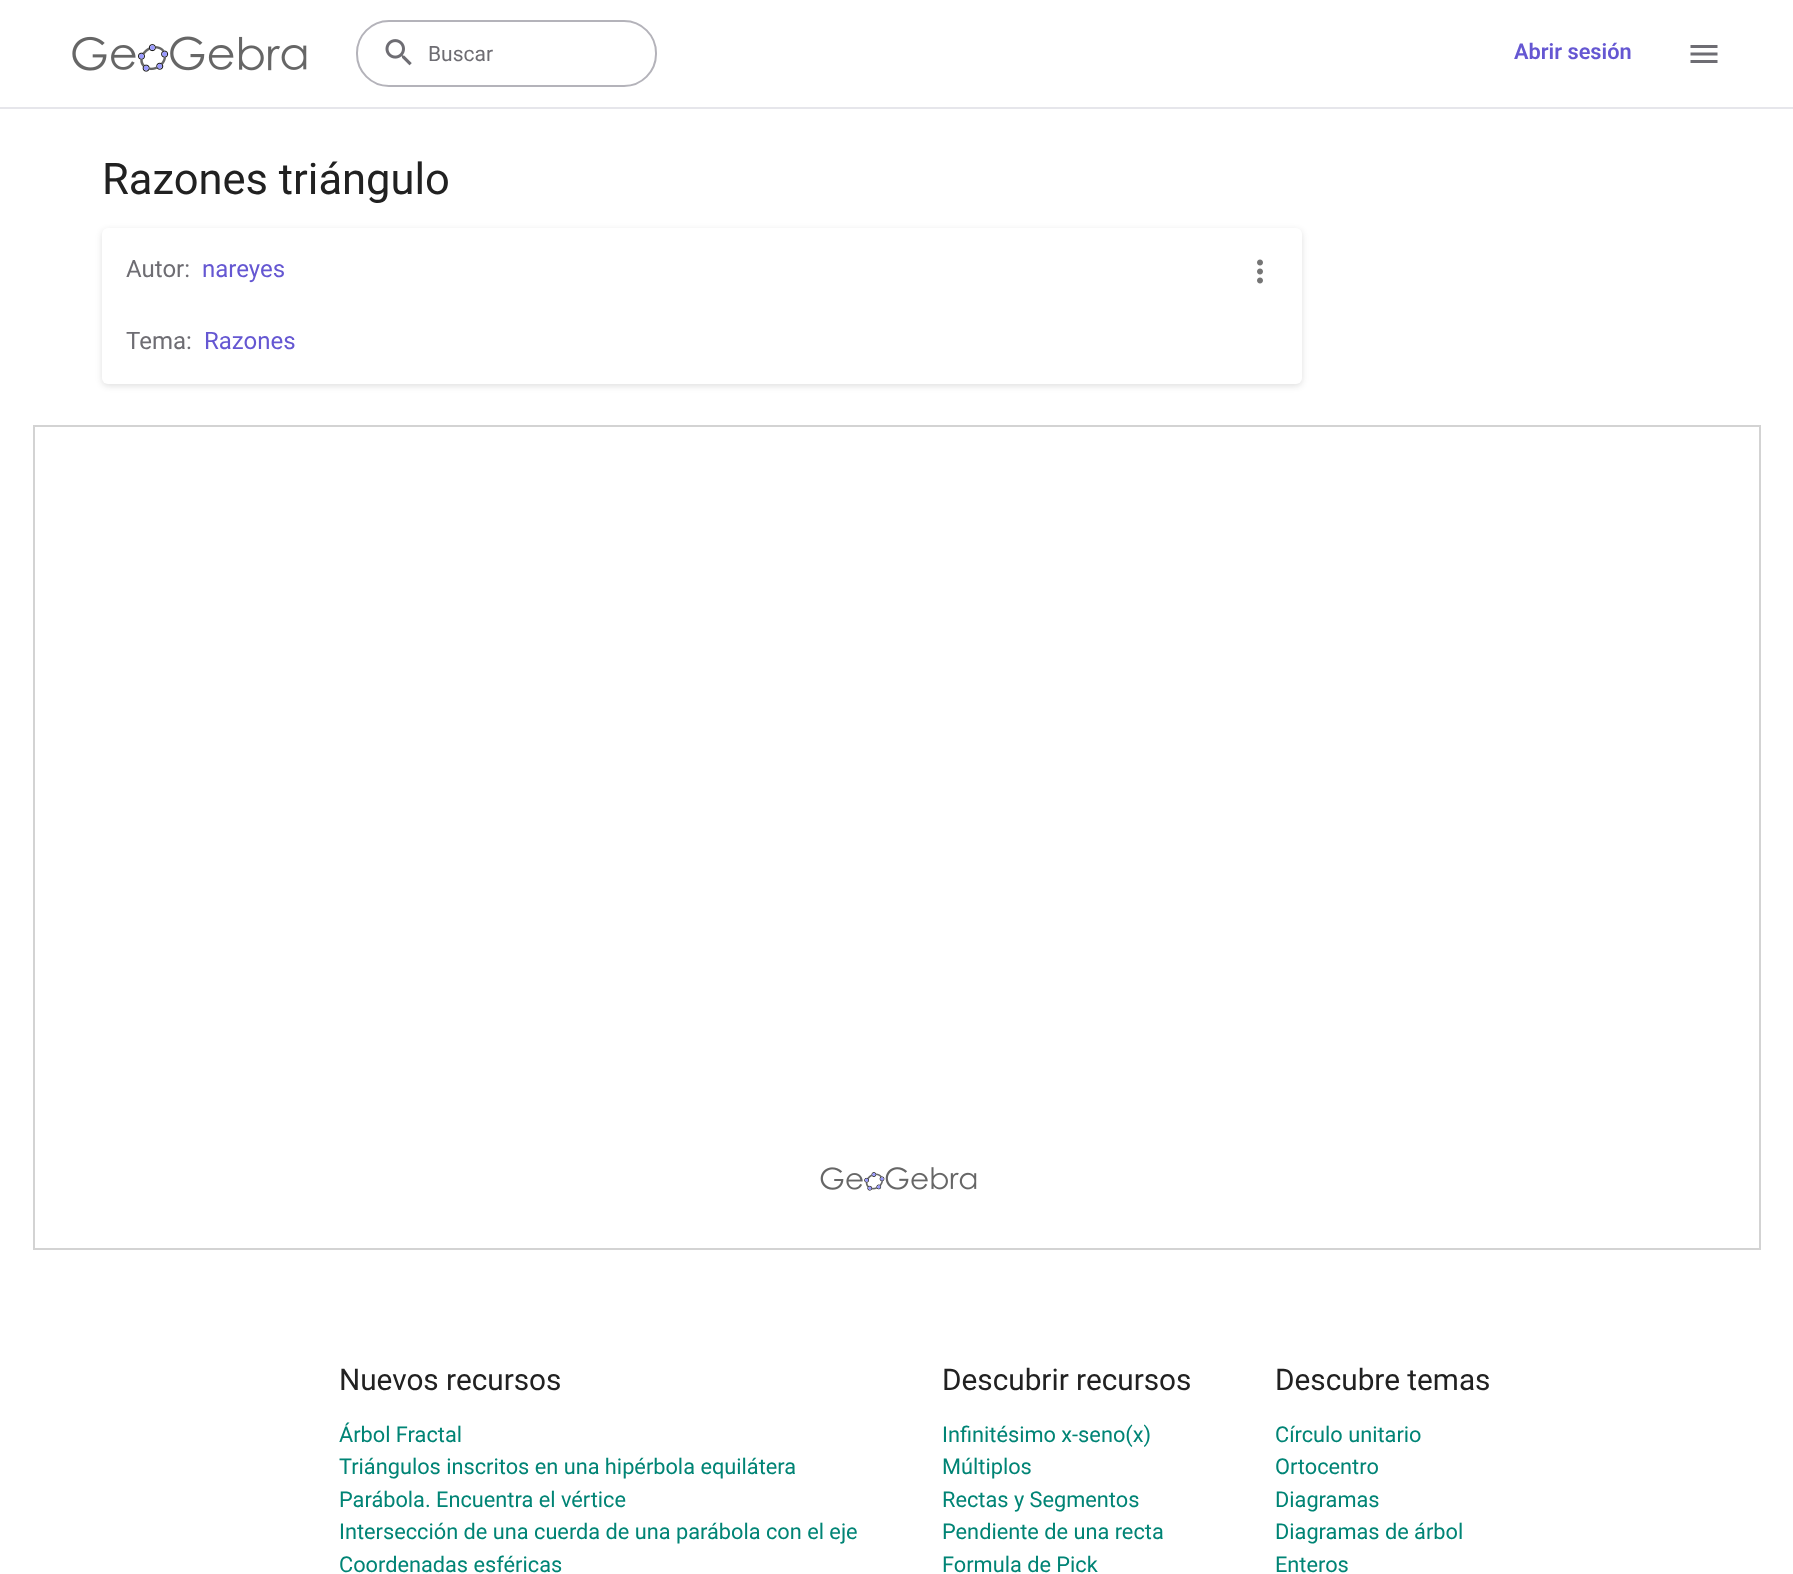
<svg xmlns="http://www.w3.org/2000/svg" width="1793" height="1574">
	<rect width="100%" height="100%" fill="#FFFFFF" />
	<rect x="0" y="107" width="1793" height="2" fill="#E6E6EB" />
	<image x="72" y="36" width="235" height="36" href="assets/img1.png" />
	<rect x="357" y="21" width="299" height="65" rx="32" fill="none" stroke="#B4B3BA" stroke-width="2" />
	<image x="385" y="39" width="27" height="27" href="assets/img2.png" />
	<text x="428" y="61" font-family="Roboto" font-size="21" fill="#6E6D73">Buscar</text>
	<text x="1514" y="59" font-family="Roboto" font-size="21.75" font-weight="600" fill="#6557D2">Abrir sesión</text>
	<image x="1690" y="45" width="28" height="18" href="assets/img3.png" />
	<text x="102" y="194" font-family="Roboto" font-size="43.5" fill="#212121">Razones triángulo</text>
	<rect x="102" y="230" width="1200" height="156" rx="6" fill="#1C1C1F" fill-opacity="0.14" filter="blur(3px)" />
	<rect x="102" y="228" width="1200" height="156" rx="6" fill="#FFFFFF" />
	<text x="126" y="277" font-family="Roboto" font-size="24" fill="#6E6D73">Autor:</text>
	<text x="202" y="277" font-family="Roboto" font-size="24" fill="#6557D2">nareyes</text>
	<text x="126" y="349" font-family="Roboto" font-size="24" fill="#6E6D73">Tema:</text>
	<text x="204" y="349" font-family="Roboto" font-size="24" fill="#6557D2">Razones</text>
	<image x="1257" y="259" width="6" height="25" href="assets/img4.png" />
	<image x="820" y="1167" width="157" height="24" href="assets/img5.png" />
	<rect x="34" y="426" width="1726" height="823" fill="none" stroke="#D3D3D3" stroke-width="2" />
	<text x="339" y="1390" font-family="Roboto" font-size="29.75" fill="#212121">Nuevos recursos</text>
	<g font-family="Roboto" font-size="21.75" fill="#008475">
		<text x="339" y="1442">Árbol Fractal</text>
		<text x="339" y="1474">Triángulos inscritos en una hipérbola equilátera</text>
		<text x="339" y="1507">Parábola. Encuentra el vértice</text>
		<text x="339" y="1539">Intersección de una cuerda de una parábola con el eje</text>
		<text x="339" y="1572">Coordenadas esféricas</text>
	</g>
	<text x="942" y="1390" font-family="Roboto" font-size="29.75" fill="#212121">Descubrir recursos</text>
	<g font-family="Roboto" font-size="21.75" fill="#008475">
		<text x="942" y="1442">Infinitésimo x-seno(x)</text>
		<text x="942" y="1474">Múltiplos</text>
		<text x="942" y="1507">Rectas y Segmentos</text>
		<text x="942" y="1539">Pendiente de una recta</text>
		<text x="942" y="1572">Formula de Pick</text>
	</g>
	<text x="1275" y="1390" font-family="Roboto" font-size="29.75" fill="#212121">Descubre temas</text>
	<g font-family="Roboto" font-size="21.75" fill="#008475">
		<text x="1275" y="1442">Círculo unitario</text>
		<text x="1275" y="1474">Ortocentro</text>
		<text x="1275" y="1507">Diagramas</text>
		<text x="1275" y="1539">Diagramas de árbol</text>
		<text x="1275" y="1572">Enteros</text>
	</g>
</svg>
